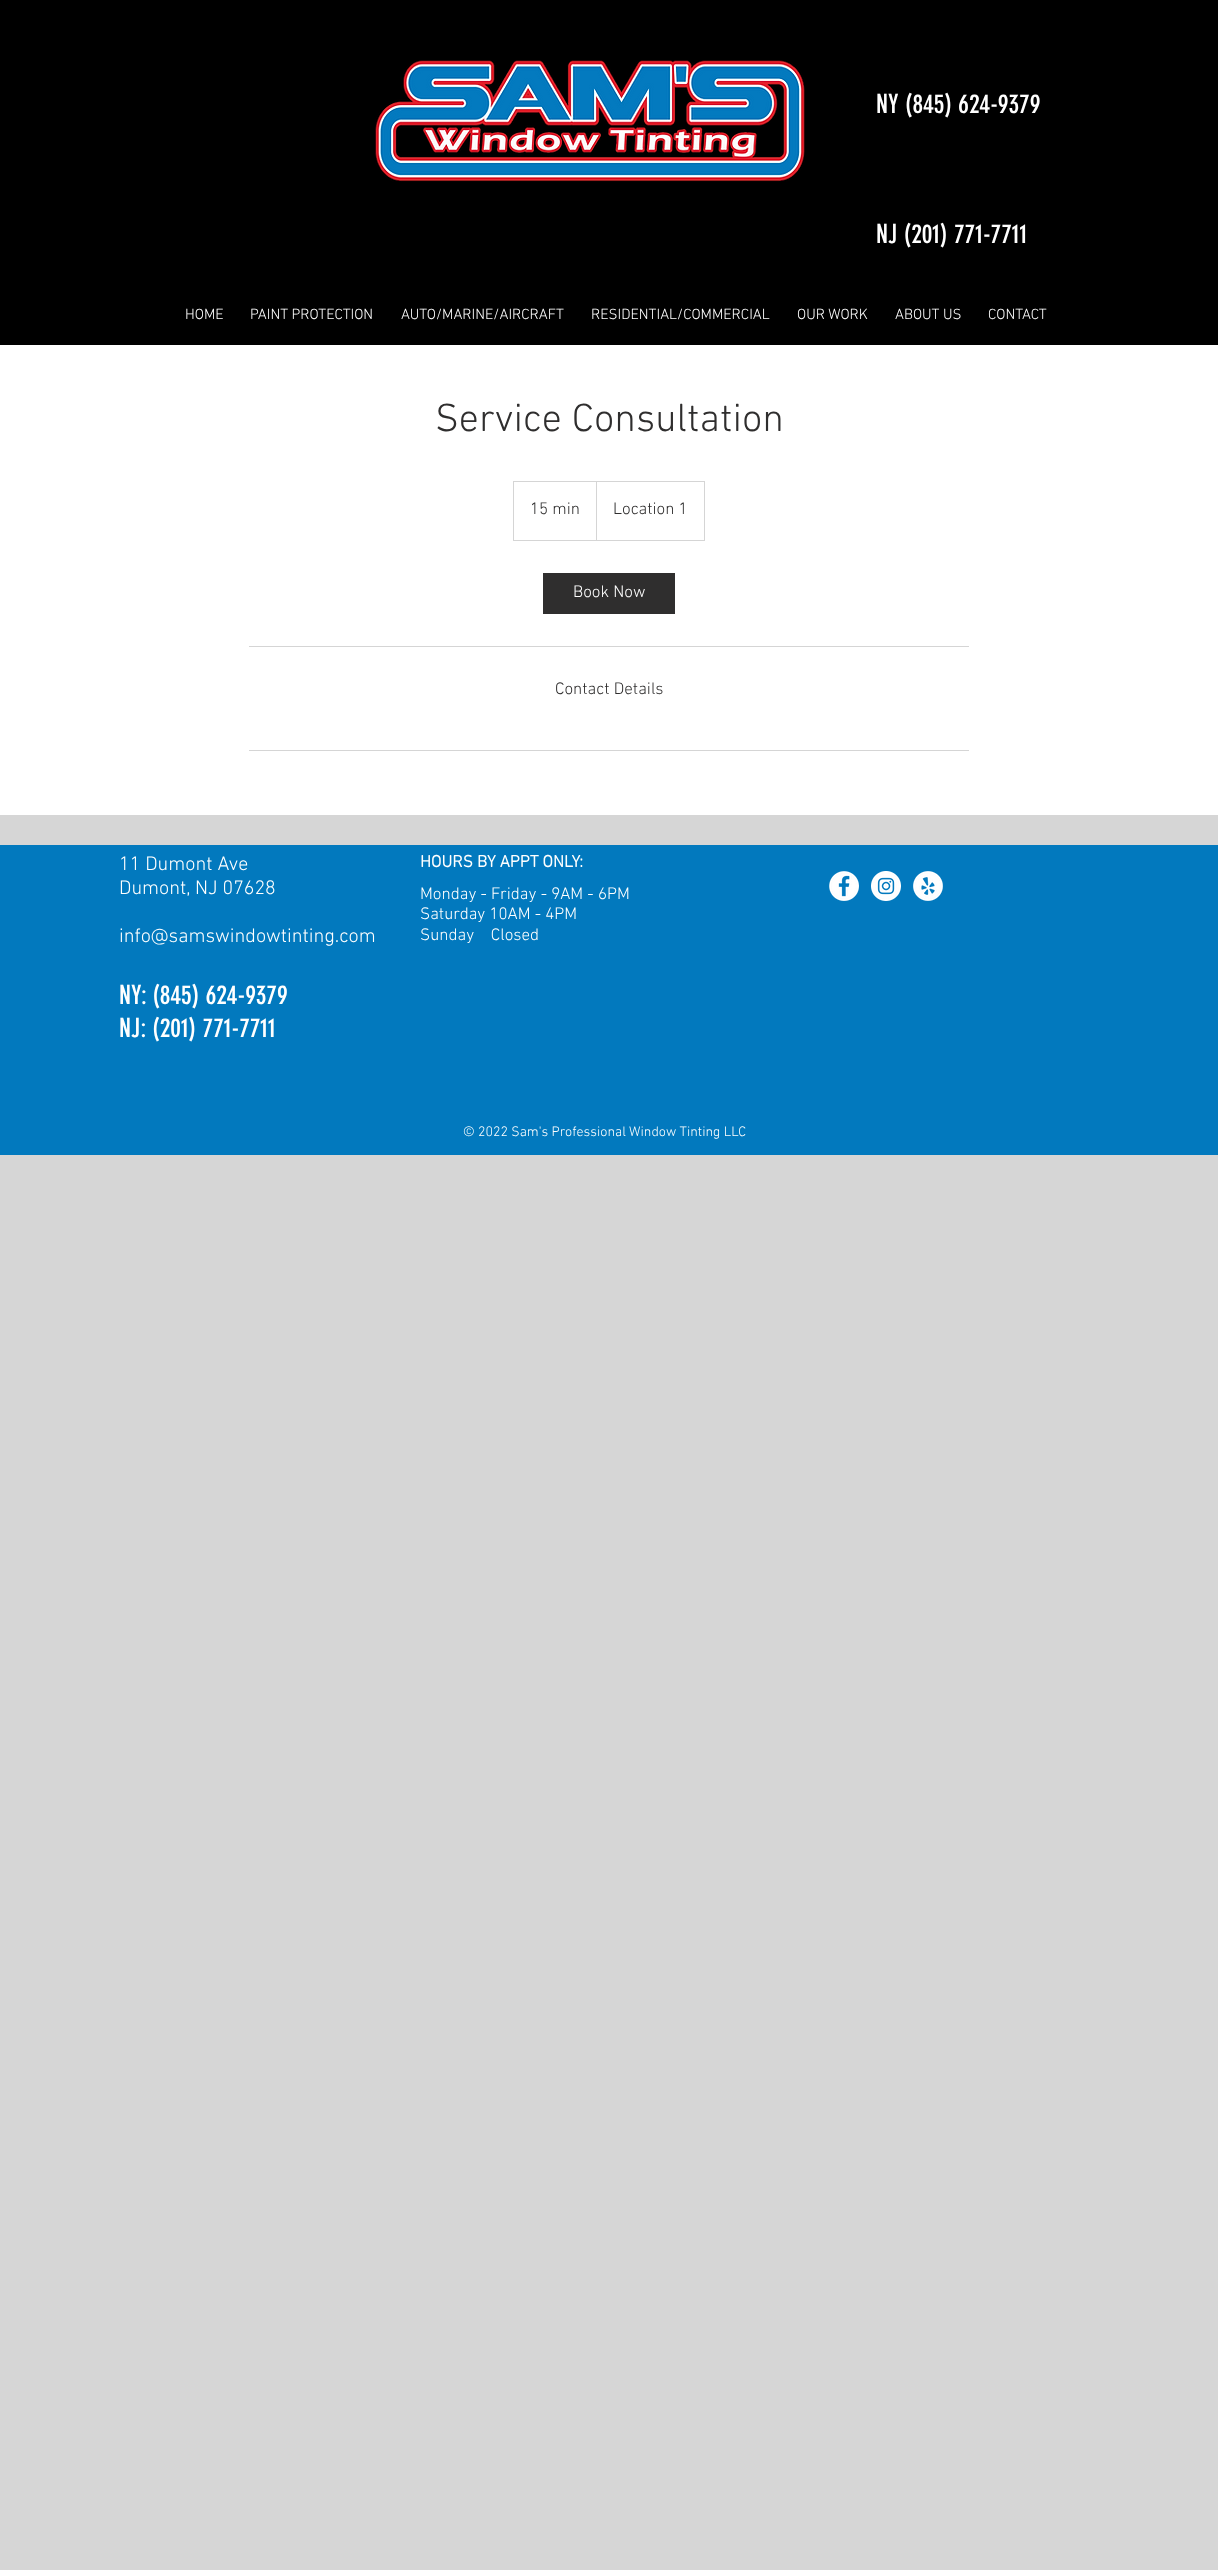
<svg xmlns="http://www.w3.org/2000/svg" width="1218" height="2570">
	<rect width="100%" height="100%" fill="#D6D6D6" />
	<rect x="0" y="0" width="1218" height="345" fill="#000000" />
	<image x="375" y="60" width="430" height="122" href="assets/img1.png" />
	<g font-family="'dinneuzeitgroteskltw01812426'" font-size="26" fill="#FFFFFF">
		<text x="876" y="113">NY (845) 624-9379</text>
		<text x="876" y="243">NJ (201) 771-7711</text>
	</g>
	<g font-family="'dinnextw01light'" font-size="15" font-weight="300" fill="#FFFFFF">
		<text x="185" y="319">HOME</text>
		<text x="250" y="319">PAINT PROTECTION</text>
		<text x="401" y="319">AUTO/MARINE/AIRCRAFT</text>
		<text x="591" y="319">RESIDENTIAL/COMMERCIAL</text>
		<text x="797" y="319">OUR WORK</text>
		<text x="895" y="319">ABOUT US</text>
		<text x="988" y="319">CONTACT</text>
	</g>
	<rect x="0" y="345" width="1218" height="470" fill="#FFFFFF" />
	<text x="435" y="431" font-family="'dinnextw01light'" font-size="40" font-weight="300" fill="#2F2E2E">Service Consultation</text>
	<rect x="513.5" y="481.5" width="191" height="59" fill="none" stroke="#D5D5D5" />
	<text x="530" y="514" font-family="'dinnextw01light'" font-size="17" font-weight="300" fill="#2F2E2E">15 min</text>
	<path d="M596 540V481L597 482V540Z" fill="#D5D5D5" />
	<text x="613" y="514" font-family="'dinnextw01light'" font-size="17" font-weight="300" fill="#2F2E2E">Location 1</text>
	<rect x="543" y="573" width="132" height="41" fill="#2F2E2E" />
	<text x="573" y="597" font-family="'dinnextw01light'" font-size="17" font-weight="300" fill="#FFFFFF">Book Now</text>
	<rect x="249" y="646" width="720" height="1" fill="#D5D5D5" />
	<text x="555" y="694" font-family="'dinnextw01light'" font-size="17" font-weight="300" fill="#2F2E2E">Contact Details</text>
	<rect x="249" y="750" width="720" height="1" fill="#D5D5D5" />
	<rect x="0" y="845" width="1218" height="310" fill="#0279BE" />
	<g font-family="'dinnextw01light'" font-size="20" font-weight="300" fill="#FFFFFF">
		<text x="119" y="870">11 Dumont Ave</text>
		<text x="119" y="894">Dumont, NJ 07628</text>
		<text x="119" y="942">info@samswindowtinting.com</text>
	</g>
	<g font-family="'dinneuzeitgroteskltw01812426'" font-size="26" fill="#FFFFFF">
		<text x="119" y="1004">NY: (845) 624-9379</text>
		<text x="119" y="1037">NJ:</text>
		<text x="152" y="1037">(201) 771-7711</text>
	</g>
	<text x="420" y="867" font-family="'dinnextw01light'" font-size="17" font-weight="700" fill="#FFFFFF">HOURS BY APPT ONLY:</text>
	<g font-family="'dinnextw01light'" font-size="17" font-weight="300" fill="#FFFFFF">
		<text x="420" y="899">Monday - Friday - 9AM - 6PM</text>
		<text x="420" y="919">Saturday 10AM - 4PM</text>
		<text x="420" y="940" xml:space="preserve">Sunday    Closed</text>
	</g>
	<image x="829" y="871" width="30" height="30" href="assets/img2.png" />
	<image x="871" y="871" width="30" height="30" href="assets/img3.png" />
	<image x="913" y="871" width="30" height="30" href="assets/img4.png" />
	<text x="463" y="1136" font-family="'dinnextw01light'" font-size="14" font-weight="300" fill="#FFFFFF">© 2022 Sam's Professional Window Tinting LLC</text>
</svg>
